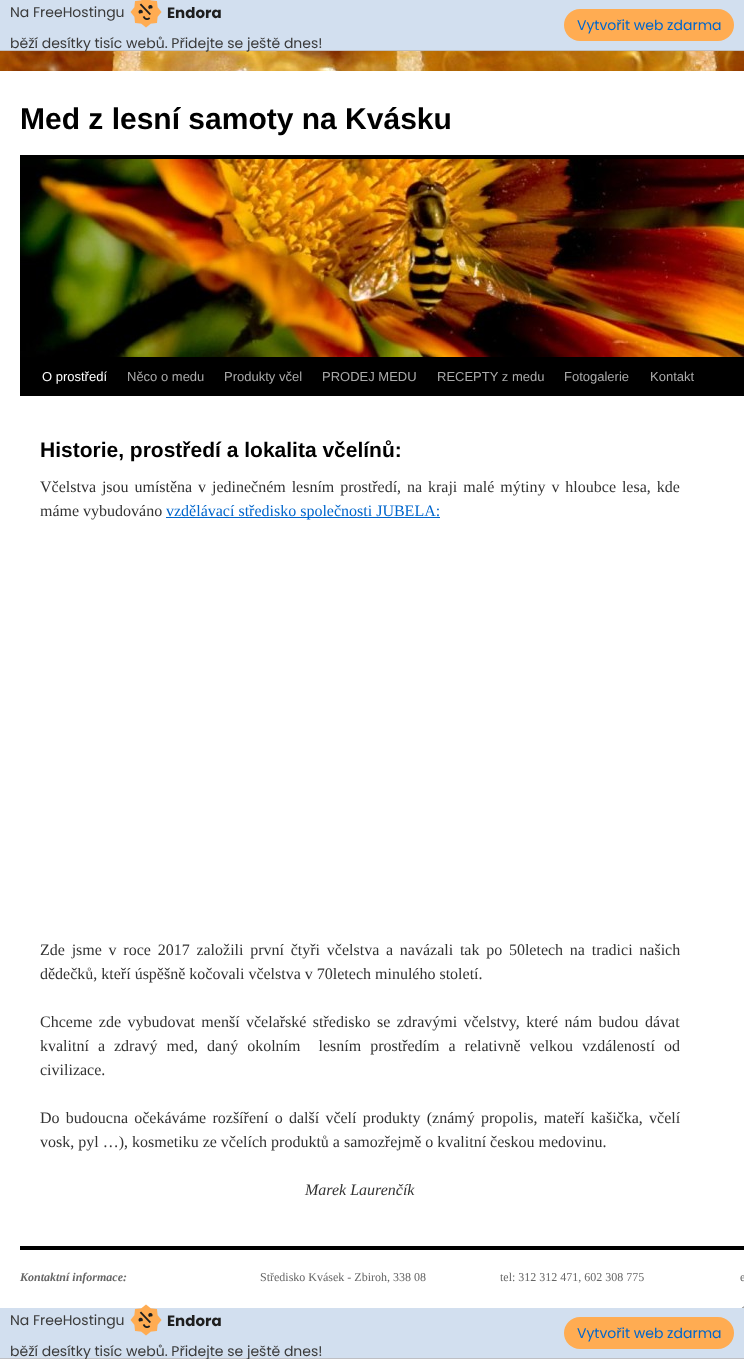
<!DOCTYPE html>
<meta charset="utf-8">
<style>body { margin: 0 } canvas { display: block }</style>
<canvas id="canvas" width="744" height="1359"></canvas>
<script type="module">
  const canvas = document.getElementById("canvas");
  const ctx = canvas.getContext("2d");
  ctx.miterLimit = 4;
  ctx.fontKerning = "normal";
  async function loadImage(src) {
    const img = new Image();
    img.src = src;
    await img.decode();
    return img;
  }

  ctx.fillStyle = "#ffffff";
  ctx.fillRect(0, 0, 744, 1359);
  ctx.drawImage(await loadImage("img1.png"), 0, 51, 744, 20);
  ctx.fillStyle = "#d2dfef";
  ctx.fillRect(0, 0, 744, 50);
  ctx.fillStyle = "#bebfc4";
  ctx.fillRect(0, 50, 744, 1);
  ctx.font = "14px Poppins";
  ctx.fillStyle = "#3a3a3a";
  ctx.fillText("Na FreeHostingu", 10, 17);
  ctx.drawImage(await loadImage("img2.png"), 130, 0, 32, 28);
  ctx.font = "bold 15px Poppins";
  ctx.fillStyle = "#1e1e1e";
  ctx.fillText("Endora", 167, 18);
  ctx.font = "14px Poppins";
  ctx.fillStyle = "#3a3a3a";
  ctx.fillText("běží desítky tisíc webů. Přidejte se ještě dnes!", 10, 48);
  ctx.fillStyle = "#ffac52";
  ctx.beginPath();
  ctx.roundRect(564, 9, 170, 32, 16);
  ctx.fill();
  ctx.fillStyle = "#0066cc";
  ctx.fillText("Vytvořit web zdarma", 577, 30);
  ctx.font = "bold 30px Liberation Sans";
  ctx.fillStyle = "#000000";
  ctx.fillText("Med z lesní samoty na Kvásku", 20, 129);
  ctx.fillRect(20, 155, 724, 4);
  ctx.fillRect(20, 357, 724, 39);
  ctx.drawImage(await loadImage("img3.png"), 20, 159, 724, 198);
  ctx.font = "13px Liberation Sans";
  ctx.fillStyle = "#ffffff";
  ctx.fillText("O prostředí", 42, 381);
  ctx.fillStyle = "#aaaaaa";
  ctx.fillText("Něco o medu", 127, 381);
  ctx.fillText("Produkty včel", 224, 381);
  ctx.fillText("PRODEJ MEDU", 322, 381);
  ctx.fillText("RECEPTY z medu", 437, 381);
  ctx.fillText("Fotogalerie", 564, 381);
  ctx.fillText("Kontakt", 650, 381);
  ctx.font = "bold 21px Liberation Sans";
  ctx.fillStyle = "#000000";
  ctx.fillText("Historie, prostředí a lokalita včelínů:", 40, 457);
  ctx.wordSpacing = "1.9px";
  ctx.font = "16px Liberation Serif";
  ctx.fillStyle = "#333333";
  ctx.fillText("Včelstva jsou umístěna v jedinečném lesním prostředí, na kraji malé mýtiny v hloubce lesa, kde", 40, 492);
  ctx.wordSpacing = "0px";
  ctx.fillText("máme vybudováno", 40, 516);
  ctx.fillStyle = "#0066cc";
  ctx.fillRect(166, 517, 274, 1);
  ctx.fillText("vzdělávací středisko společnosti JUBELA:", 166, 516);
  ctx.wordSpacing = "2.75px";
  ctx.fillStyle = "#333333";
  ctx.fillText("Zde jsme v roce 2017 založili první čtyři včelstva a navázali tak po 50letech na tradici našich", 40, 955);
  ctx.wordSpacing = "0px";
  ctx.fillText("dědečků, kteří úspěšně kočovali včelstva v 70letech minulého století.", 40, 979);
  ctx.wordSpacing = "2.4px";
  ctx.fillText("Chceme zde vybudovat menší včelařské středisko se zdravými včelstvy, které nám budou dávat", 40, 1027);
  ctx.wordSpacing = "5px";
  ctx.fillText("kvalitní a zdravý med, daný okolním  lesním prostředím a relativně velkou vzdáleností od", 40, 1051);
  ctx.wordSpacing = "0px";
  ctx.fillText("civilizace.", 40, 1075);
  ctx.wordSpacing = "2.25px";
  ctx.fillText("Do budoucna očekáváme rozšíření o další včelí produkty (známý propolis, mateří kašička, včelí", 40, 1123);
  ctx.wordSpacing = "0px";
  ctx.fillText("vosk, pyl …), kosmetiku ze včelích produktů a samozřejmě o kvalitní českou medovinu.", 40, 1147);
  ctx.font = "italic 16px Liberation Serif";
  ctx.fillText("Marek Laurenčík", 305, 1195);
  ctx.fillStyle = "#000000";
  ctx.fillRect(20, 1246, 724, 4);
  ctx.font = "italic bold 12px Liberation Serif";
  ctx.fillStyle = "#666666";
  ctx.fillText("Kontaktní informace:", 20, 1281);
  ctx.font = "12px Liberation Serif";
  ctx.fillText("Středisko Kvásek - Zbiroh, 338 08", 260, 1281);
  ctx.fillText("tel: 312 312 471, 602 308 775", 500, 1281);
  ctx.fillText("e", 740, 1281);
  ctx.drawImage(await loadImage("img4.png"), 741, 1306, 3, 2);
  ctx.fillStyle = "#d2dfef";
  ctx.fillRect(0, 1308, 744, 50);
  ctx.fillStyle = "#bebfc4";
  ctx.fillRect(0, 1358, 744, 1);
  ctx.font = "14px Poppins";
  ctx.fillStyle = "#3a3a3a";
  ctx.fillText("Na FreeHostingu", 10, 1325);
  ctx.drawImage(await loadImage("img5.png"), 130, 1304, 32, 32);
  ctx.font = "bold 15px Poppins";
  ctx.fillStyle = "#1e1e1e";
  ctx.fillText("Endora", 167, 1326);
  ctx.font = "14px Poppins";
  ctx.fillStyle = "#3a3a3a";
  ctx.fillText("běží desítky tisíc webů. Přidejte se ještě dnes!", 10, 1356);
  ctx.fillStyle = "#ffac52";
  ctx.beginPath();
  ctx.roundRect(564, 1317, 170, 32, 16);
  ctx.fill();
  ctx.fillStyle = "#0066cc";
  ctx.fillText("Vytvořit web zdarma", 577, 1338);
</script>
